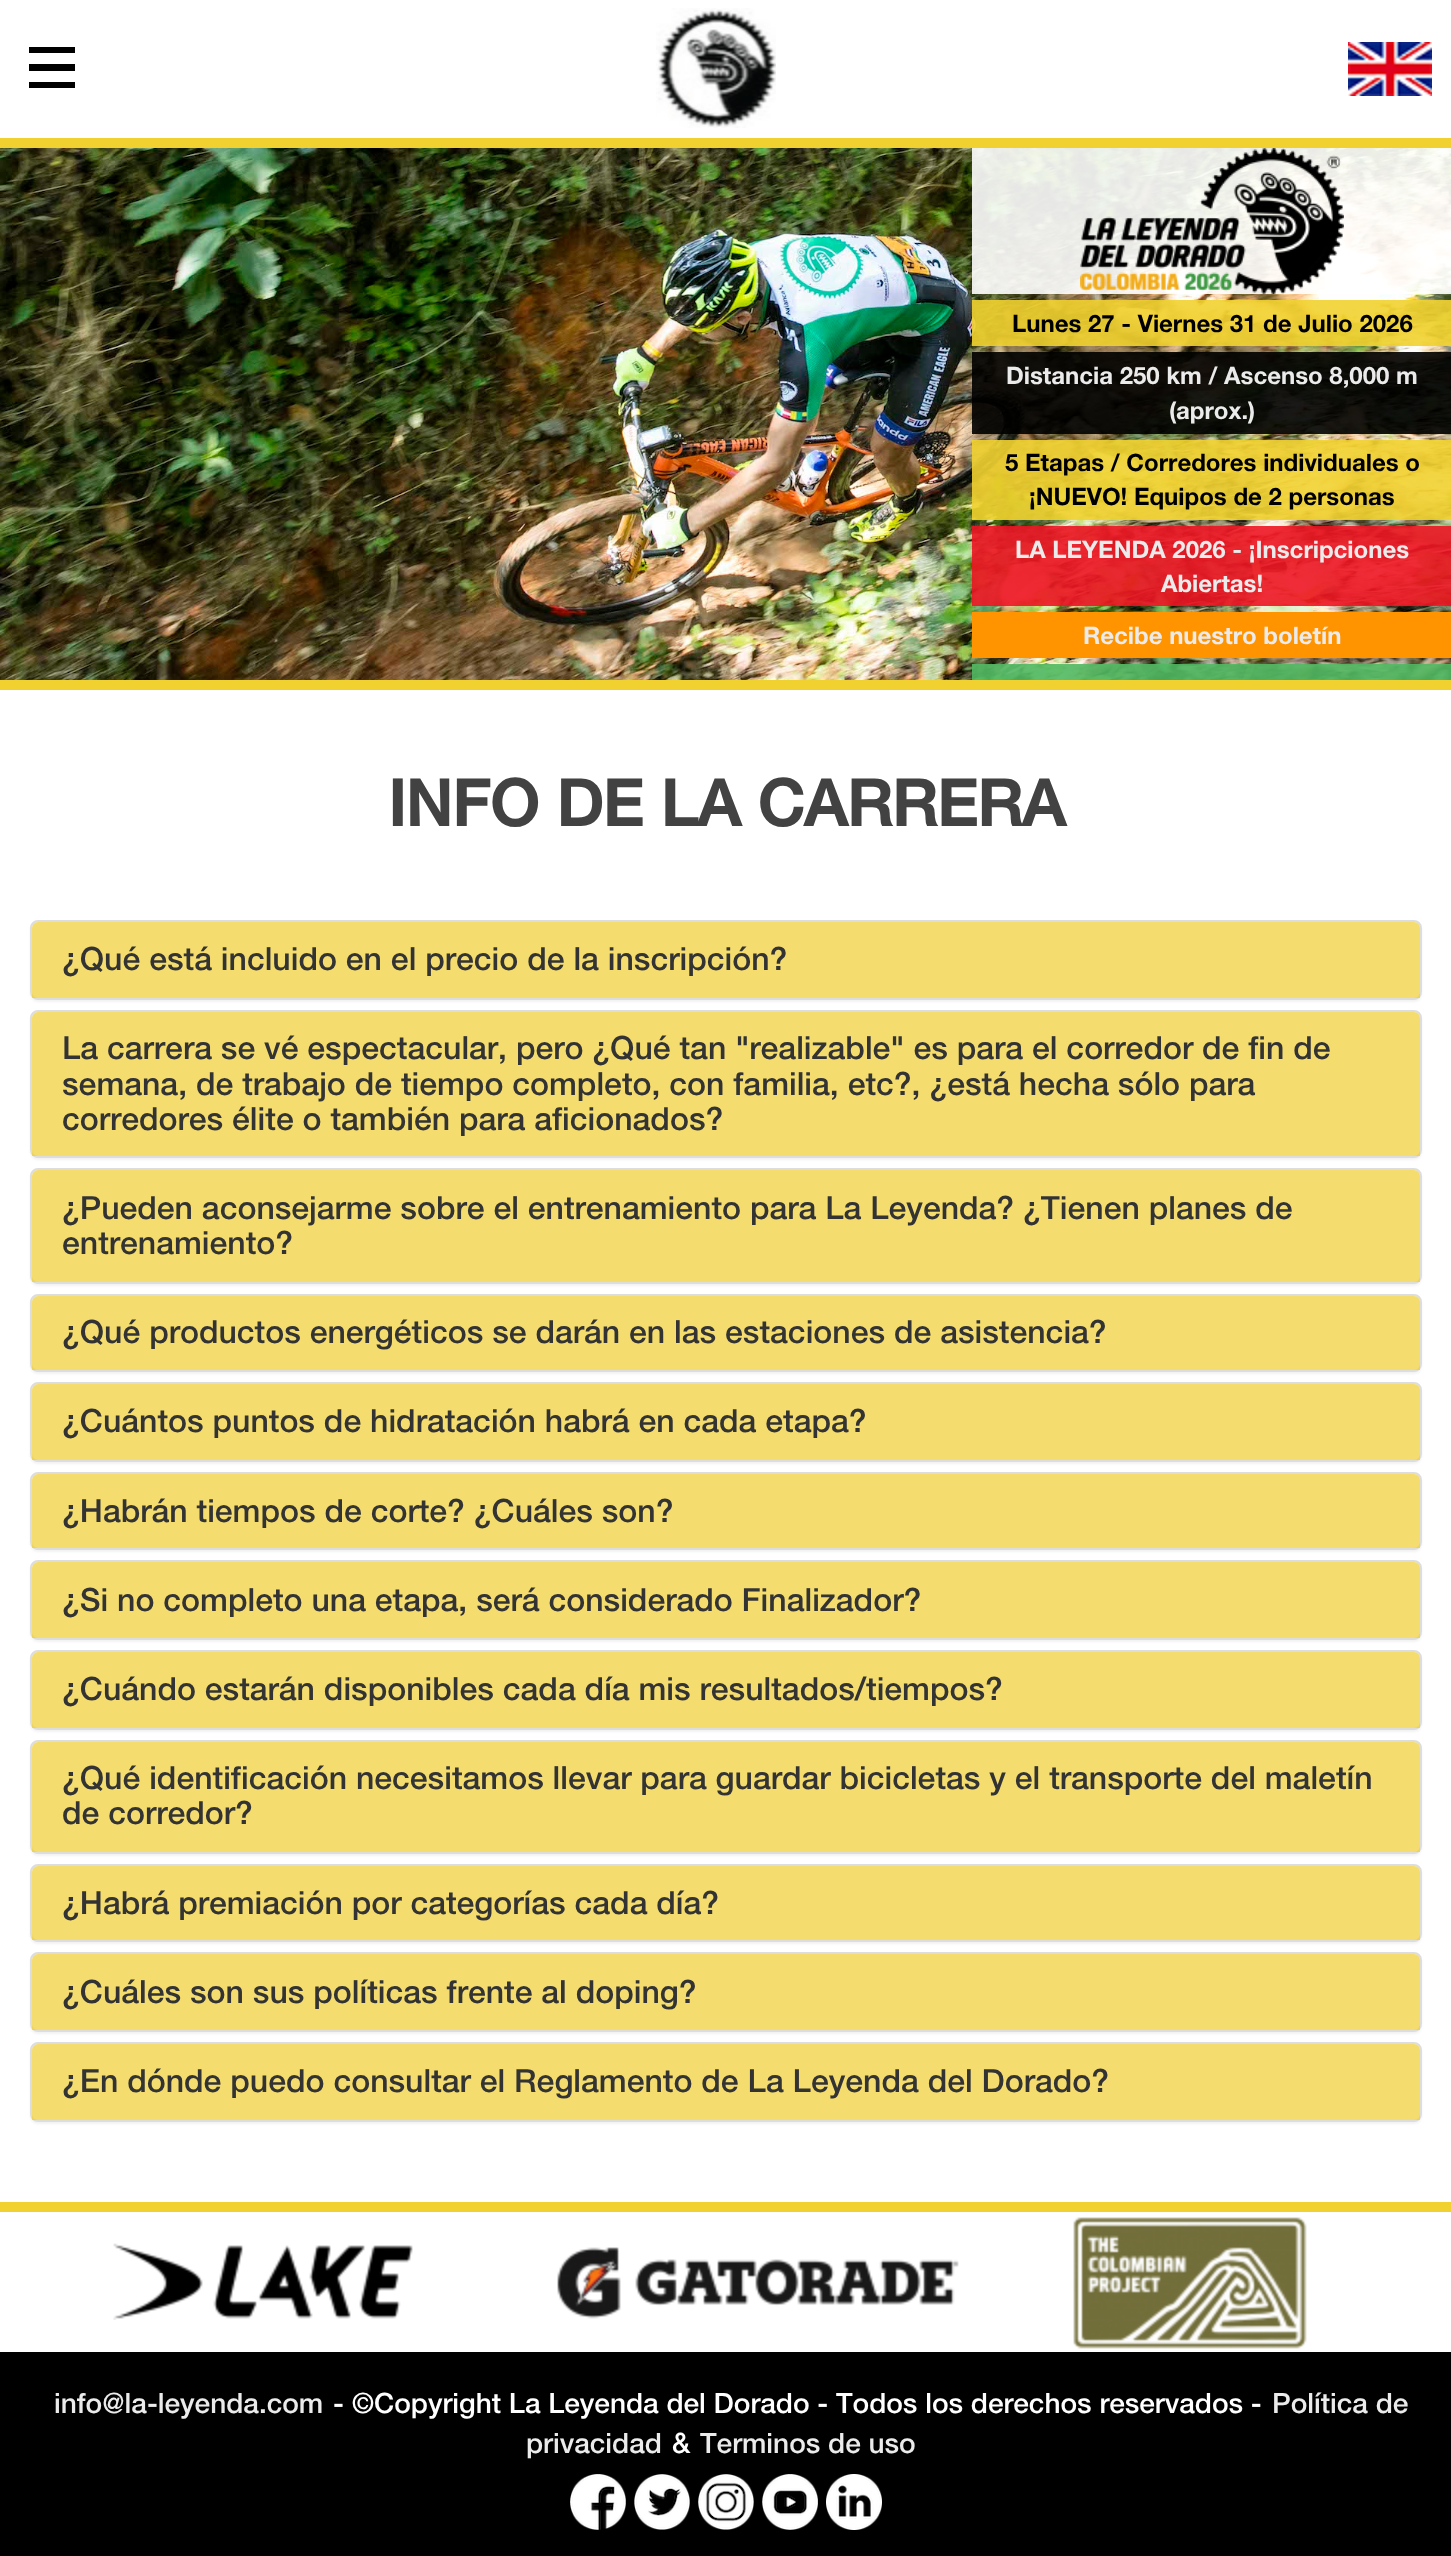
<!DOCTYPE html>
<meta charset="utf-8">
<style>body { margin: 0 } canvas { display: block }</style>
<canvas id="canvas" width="1451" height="2556"></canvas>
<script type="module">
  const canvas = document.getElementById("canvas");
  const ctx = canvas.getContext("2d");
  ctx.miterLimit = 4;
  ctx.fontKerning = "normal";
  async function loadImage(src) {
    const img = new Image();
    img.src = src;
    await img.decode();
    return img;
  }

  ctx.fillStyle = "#ffffff";
  ctx.fillRect(0, 0, 1451, 2556);
  ctx.fillStyle = "#000000";
  ctx.fillRect(29, 47, 46, 6);
  ctx.fillRect(29, 64, 46, 7);
  ctx.fillRect(29, 82, 46, 6);
  ctx.drawImage(await loadImage("img1.png"), 656, 8, 120, 120);
  ctx.drawImage(await loadImage("img2.png"), 1348, 42, 84, 54);
  ctx.fillStyle = "#f1d130";
  ctx.fillRect(0, 138, 1451, 10);
  ctx.fillRect(0, 680, 1451, 10);
  ctx.drawImage(await loadImage("img3.png"), 0, 148, 1451, 532);
  ctx.fillStyle = "rgba(255, 255, 255, 0.9)";
  ctx.fillRect(972, 148, 479, 146);
  ctx.drawImage(await loadImage("img4.png"), 1080, 148, 264, 146);
  ctx.fillStyle = "rgba(241, 209, 48, 0.9)";
  ctx.fillRect(972, 300, 479, 46);
  ctx.font = "bold 24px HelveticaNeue";
  ctx.fillStyle = "#000000";
  ctx.fillText("Lunes 27 - Viernes 31 de Julio 2026", 1012, 332);
  ctx.fillStyle = "rgba(0, 0, 0, 0.9)";
  ctx.fillRect(972, 352, 479, 82);
  ctx.fillStyle = "#ebebeb";
  ctx.fillText("Distancia 250 km / Ascenso 8,000 m", 1006, 384);
  ctx.fillText("(aprox.)", 1169, 419);
  ctx.fillStyle = "rgba(241, 209, 48, 0.9)";
  ctx.fillRect(972, 440, 479, 80);
  ctx.fillStyle = "#000000";
  ctx.fillText("5 Etapas / Corredores individuales o", 1005, 471);
  ctx.fillText("¡NUEVO! Equipos de 2 personas", 1029, 505);
  ctx.fillStyle = "rgba(237, 21, 36, 0.9)";
  ctx.fillRect(972, 526, 479, 80);
  ctx.fillStyle = "#ebebeb";
  ctx.fillText("LA LEYENDA 2026 - ¡Inscripciones", 1015, 558);
  ctx.fillText("Abiertas!", 1161, 592);
  ctx.fillStyle = "#ff9300";
  ctx.fillRect(972, 612, 479, 46);
  ctx.fillStyle = "#ebebeb";
  ctx.fillText("Recibe nuestro boletín", 1083, 644);
  ctx.fillStyle = "rgba(81, 185, 99, 0.9)";
  ctx.fillRect(972, 664, 479, 16);
  ctx.font = "bold 64px 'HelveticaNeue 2'";
  ctx.fillStyle = "#424242";
  ctx.fillText("INFO DE LA CARRERA", 388, 826);
  ctx.fillStyle = "rgba(0, 0, 0, 0.05)";
  ctx.filter = "blur(1px)";
  ctx.beginPath();
  ctx.roundRect(30, 922, 1392, 80, 8);
  ctx.fill();
  ctx.filter = "none";
  ctx.fillStyle = "#ffffff";
  ctx.beginPath();
  ctx.roundRect(31, 921, 1390, 78, 7);
  ctx.fill();
  ctx.strokeStyle = "#dddddd";
  ctx.lineWidth = 2;
  ctx.stroke();
  ctx.fillStyle = "rgba(239, 207, 48, 0.7)";
  ctx.beginPath();
  ctx.roundRect(32, 922, 1388, 76, [6, 6, 0, 0]);
  ctx.fill();
  ctx.font = "500 32px HelveticaNeue";
  ctx.fillStyle = "#333333";
  ctx.fillText("¿Qué está incluido en el precio de la inscripción?", 62, 970);
  ctx.fillStyle = "rgba(0, 0, 0, 0.05)";
  ctx.filter = "blur(1px)";
  ctx.beginPath();
  ctx.roundRect(30, 1012, 1392, 148, 8);
  ctx.fill();
  ctx.filter = "none";
  ctx.fillStyle = "#ffffff";
  ctx.beginPath();
  ctx.roundRect(31, 1011, 1390, 146, 7);
  ctx.fill();
  ctx.stroke();
  ctx.fillStyle = "rgba(239, 207, 48, 0.7)";
  ctx.beginPath();
  ctx.roundRect(32, 1012, 1388, 144, [6, 6, 0, 0]);
  ctx.fill();
  ctx.fillStyle = "#333333";
  ctx.fillText("La carrera se vé espectacular, pero ¿Qué tan \"realizable\" es para el corredor de fin de", 62, 1059);
  ctx.fillText("semana, de trabajo de tiempo completo, con familia, etc?, ¿está hecha sólo para", 62, 1095);
  ctx.fillText("corredores élite o también para aficionados?", 62, 1130);
  ctx.fillStyle = "rgba(0, 0, 0, 0.05)";
  ctx.filter = "blur(1px)";
  ctx.beginPath();
  ctx.roundRect(30, 1170, 1392, 116, 8);
  ctx.fill();
  ctx.filter = "none";
  ctx.fillStyle = "#ffffff";
  ctx.beginPath();
  ctx.roundRect(31, 1169, 1390, 114, 7);
  ctx.fill();
  ctx.stroke();
  ctx.fillStyle = "rgba(239, 207, 48, 0.7)";
  ctx.beginPath();
  ctx.roundRect(32, 1170, 1388, 112, [6, 6, 0, 0]);
  ctx.fill();
  ctx.fillStyle = "#333333";
  ctx.fillText("¿Pueden aconsejarme sobre el entrenamiento para La Leyenda? ¿Tienen planes de", 62, 1219);
  ctx.fillText("entrenamiento?", 62, 1254);
  ctx.fillStyle = "rgba(0, 0, 0, 0.05)";
  ctx.filter = "blur(1px)";
  ctx.beginPath();
  ctx.roundRect(30, 1296, 1392, 78, 8);
  ctx.fill();
  ctx.filter = "none";
  ctx.fillStyle = "#ffffff";
  ctx.beginPath();
  ctx.roundRect(31, 1295, 1390, 76, 7);
  ctx.fill();
  ctx.stroke();
  ctx.fillStyle = "rgba(239, 207, 48, 0.7)";
  ctx.beginPath();
  ctx.roundRect(32, 1296, 1388, 74, [6, 6, 0, 0]);
  ctx.fill();
  ctx.fillStyle = "#333333";
  ctx.fillText("¿Qué productos energéticos se darán en las estaciones de asistencia?", 62, 1343);
  ctx.fillStyle = "rgba(0, 0, 0, 0.05)";
  ctx.filter = "blur(1px)";
  ctx.beginPath();
  ctx.roundRect(30, 1384, 1392, 80, 8);
  ctx.fill();
  ctx.filter = "none";
  ctx.fillStyle = "#ffffff";
  ctx.beginPath();
  ctx.roundRect(31, 1383, 1390, 78, 7);
  ctx.fill();
  ctx.stroke();
  ctx.fillStyle = "rgba(239, 207, 48, 0.7)";
  ctx.beginPath();
  ctx.roundRect(32, 1384, 1388, 76, [6, 6, 0, 0]);
  ctx.fill();
  ctx.fillStyle = "#333333";
  ctx.fillText("¿Cuántos puntos de hidratación habrá en cada etapa?", 62, 1432);
  ctx.fillStyle = "rgba(0, 0, 0, 0.05)";
  ctx.filter = "blur(1px)";
  ctx.beginPath();
  ctx.roundRect(30, 1474, 1392, 78, 8);
  ctx.fill();
  ctx.filter = "none";
  ctx.fillStyle = "#ffffff";
  ctx.beginPath();
  ctx.roundRect(31, 1473, 1390, 76, 7);
  ctx.fill();
  ctx.stroke();
  ctx.fillStyle = "rgba(239, 207, 48, 0.7)";
  ctx.beginPath();
  ctx.roundRect(32, 1474, 1388, 74, [6, 6, 0, 0]);
  ctx.fill();
  ctx.fillStyle = "#333333";
  ctx.fillText("¿Habrán tiempos de corte? ¿Cuáles son?", 62, 1522);
  ctx.fillStyle = "rgba(0, 0, 0, 0.05)";
  ctx.filter = "blur(1px)";
  ctx.beginPath();
  ctx.roundRect(30, 1562, 1392, 80, 8);
  ctx.fill();
  ctx.filter = "none";
  ctx.fillStyle = "#ffffff";
  ctx.beginPath();
  ctx.roundRect(31, 1561, 1390, 78, 7);
  ctx.fill();
  ctx.stroke();
  ctx.fillStyle = "rgba(239, 207, 48, 0.7)";
  ctx.beginPath();
  ctx.roundRect(32, 1562, 1388, 76, [6, 6, 0, 0]);
  ctx.fill();
  ctx.fillStyle = "#333333";
  ctx.fillText("¿Si no completo una etapa, será considerado Finalizador?", 62, 1611);
  ctx.fillStyle = "rgba(0, 0, 0, 0.05)";
  ctx.filter = "blur(1px)";
  ctx.beginPath();
  ctx.roundRect(30, 1652, 1392, 80, 8);
  ctx.fill();
  ctx.filter = "none";
  ctx.fillStyle = "#ffffff";
  ctx.beginPath();
  ctx.roundRect(31, 1651, 1390, 78, 7);
  ctx.fill();
  ctx.stroke();
  ctx.fillStyle = "rgba(239, 207, 48, 0.7)";
  ctx.beginPath();
  ctx.roundRect(32, 1652, 1388, 76, [6, 6, 0, 0]);
  ctx.fill();
  ctx.fillStyle = "#333333";
  ctx.fillText("¿Cuándo estarán disponibles cada día mis resultados/tiempos?", 62, 1700);
  ctx.fillStyle = "rgba(0, 0, 0, 0.05)";
  ctx.filter = "blur(1px)";
  ctx.beginPath();
  ctx.roundRect(30, 1742, 1392, 114, 8);
  ctx.fill();
  ctx.filter = "none";
  ctx.fillStyle = "#ffffff";
  ctx.beginPath();
  ctx.roundRect(31, 1741, 1390, 112, 7);
  ctx.fill();
  ctx.stroke();
  ctx.fillStyle = "rgba(239, 207, 48, 0.7)";
  ctx.beginPath();
  ctx.roundRect(32, 1742, 1388, 110, [6, 6, 0, 0]);
  ctx.fill();
  ctx.fillStyle = "#333333";
  ctx.fillText("¿Qué identificación necesitamos llevar para guardar bicicletas y el transporte del maletín", 62, 1789);
  ctx.fillText("de corredor?", 62, 1824);
  ctx.fillStyle = "rgba(0, 0, 0, 0.05)";
  ctx.filter = "blur(1px)";
  ctx.beginPath();
  ctx.roundRect(30, 1866, 1392, 78, 8);
  ctx.fill();
  ctx.filter = "none";
  ctx.fillStyle = "#ffffff";
  ctx.beginPath();
  ctx.roundRect(31, 1865, 1390, 76, 7);
  ctx.fill();
  ctx.stroke();
  ctx.fillStyle = "rgba(239, 207, 48, 0.7)";
  ctx.beginPath();
  ctx.roundRect(32, 1866, 1388, 74, [6, 6, 0, 0]);
  ctx.fill();
  ctx.fillStyle = "#333333";
  ctx.fillText("¿Habrá premiación por categorías cada día?", 62, 1914);
  ctx.fillStyle = "rgba(0, 0, 0, 0.05)";
  ctx.filter = "blur(1px)";
  ctx.beginPath();
  ctx.roundRect(30, 1954, 1392, 80, 8);
  ctx.fill();
  ctx.filter = "none";
  ctx.fillStyle = "#ffffff";
  ctx.beginPath();
  ctx.roundRect(31, 1953, 1390, 78, 7);
  ctx.fill();
  ctx.stroke();
  ctx.fillStyle = "rgba(239, 207, 48, 0.7)";
  ctx.beginPath();
  ctx.roundRect(32, 1954, 1388, 76, [6, 6, 0, 0]);
  ctx.fill();
  ctx.fillStyle = "#333333";
  ctx.fillText("¿Cuáles son sus políticas frente al doping?", 62, 2003);
  ctx.fillStyle = "rgba(0, 0, 0, 0.05)";
  ctx.filter = "blur(1px)";
  ctx.beginPath();
  ctx.roundRect(30, 2044, 1392, 80, 8);
  ctx.fill();
  ctx.filter = "none";
  ctx.fillStyle = "#ffffff";
  ctx.beginPath();
  ctx.roundRect(31, 2043, 1390, 78, 7);
  ctx.fill();
  ctx.stroke();
  ctx.fillStyle = "rgba(239, 207, 48, 0.7)";
  ctx.beginPath();
  ctx.roundRect(32, 2044, 1388, 76, [6, 6, 0, 0]);
  ctx.fill();
  ctx.fillStyle = "#333333";
  ctx.fillText("¿En dónde puedo consultar el Reglamento de La Leyenda del Dorado?", 62, 2092);
  ctx.fillStyle = "#f1d130";
  ctx.fillRect(0, 2202, 1451, 10);
  ctx.drawImage(await loadImage("img5.png"), 113, 2243, 300, 77);
  ctx.drawImage(await loadImage("img6.png"), 557, 2247, 402, 72);
  ctx.drawImage(await loadImage("img7.png"), 1073, 2217, 234, 132);
  ctx.fillStyle = "#000000";
  ctx.fillRect(0, 2352, 1451, 204);
  ctx.font = "500 28px HelveticaNeue";
  ctx.fillStyle = "#ebebeb";
  ctx.fillText("info@la-leyenda.com", 54, 2413);
  ctx.fillStyle = "#ffffff";
  ctx.fillText("- ©Copyright La Leyenda del Dorado - Todos los derechos reservados -", 333, 2413);
  ctx.fillStyle = "#ebebeb";
  ctx.fillText("Política de", 1272, 2413);
  ctx.fillText("privacidad", 526, 2453);
  ctx.fillStyle = "#ffffff";
  ctx.fillText("&", 672, 2453);
  ctx.fillStyle = "#ebebeb";
  ctx.fillText("Terminos de uso", 700, 2453);
  ctx.drawImage(await loadImage("img8.png"), 570, 2474, 56, 56);
  ctx.drawImage(await loadImage("img9.png"), 634, 2474, 56, 56);
  ctx.drawImage(await loadImage("img10.png"), 698, 2474, 56, 56);
  ctx.drawImage(await loadImage("img11.png"), 762, 2474, 56, 56);
  ctx.drawImage(await loadImage("img12.png"), 826, 2474, 56, 56);
</script>
